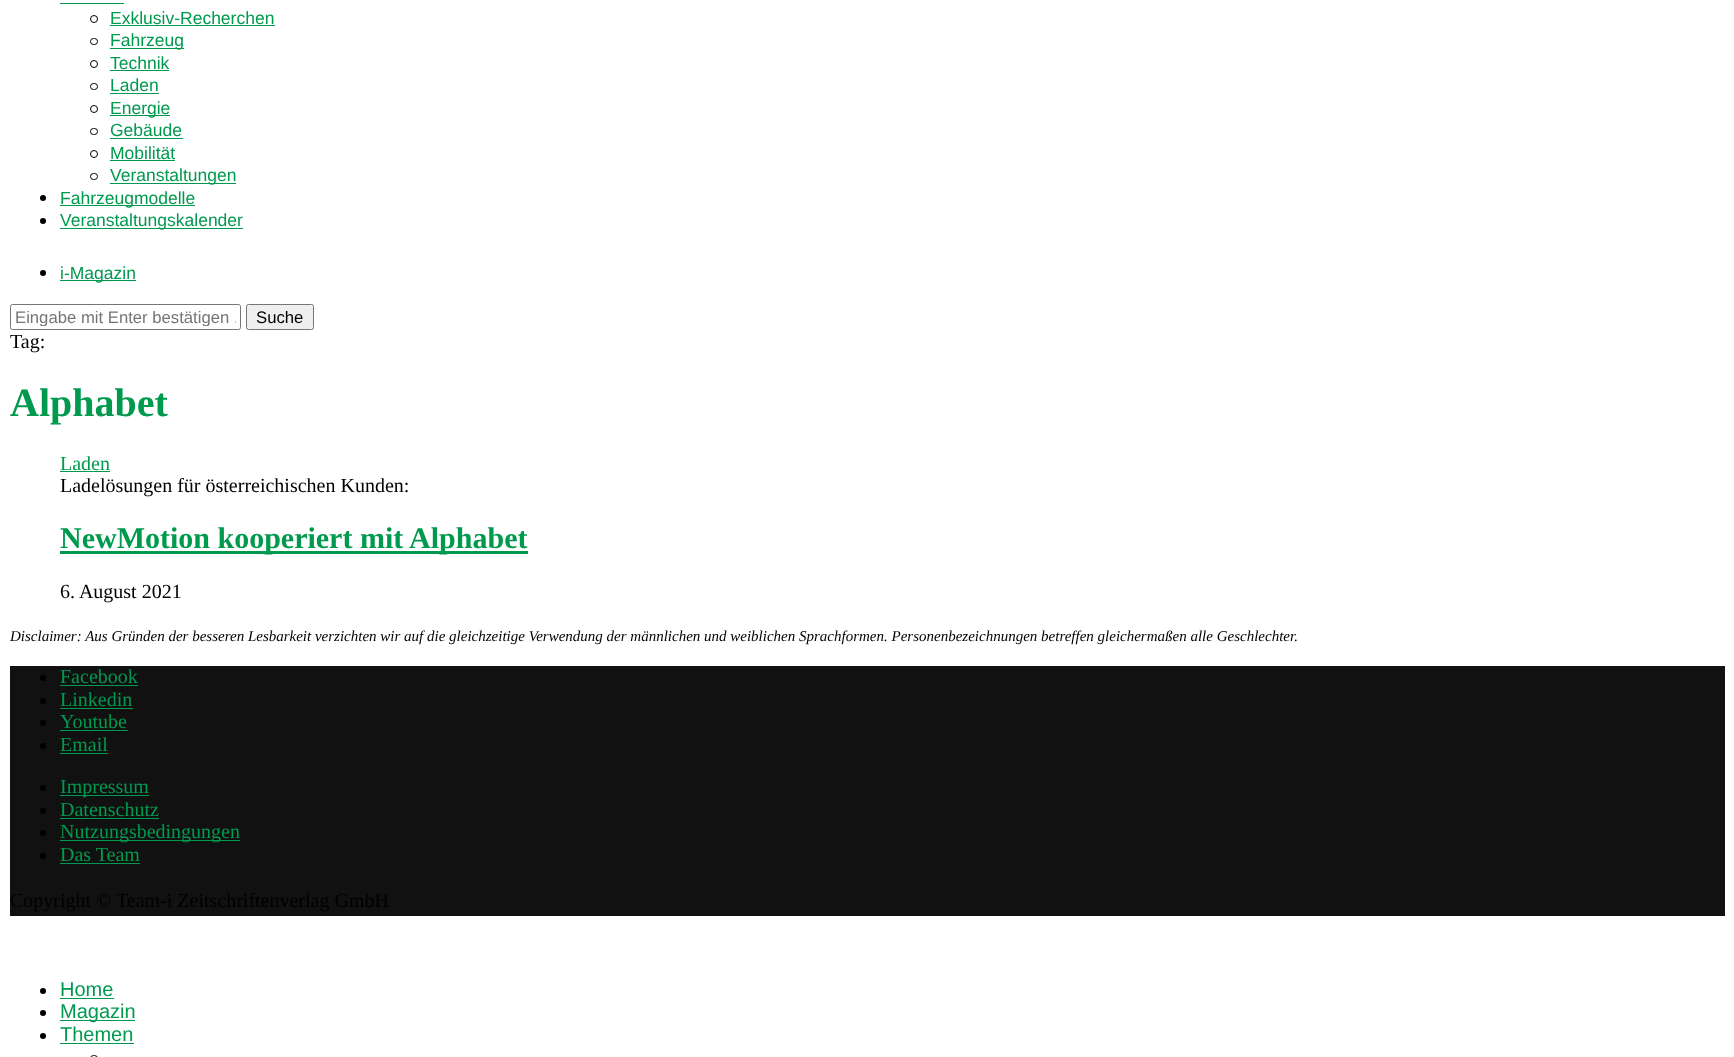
<!DOCTYPE html>
<meta charset="utf-8">
<style>body { margin: 0 } canvas { display: block }</style>
<canvas id="canvas" width="1734" height="1057"></canvas>
<script type="module">
  const canvas = document.getElementById("canvas");
  const ctx = canvas.getContext("2d");
  ctx.miterLimit = 4;
  ctx.fontKerning = "normal";

  ctx.fillStyle = "#ffffff";
  ctx.fillRect(0, 0, 1734, 1057);
  ctx.fillStyle = "#009a4e";
  ctx.fillRect(60, 3, 64, 1);
  ctx.beginPath();
  ctx.arc(94, 19, 3.5, 0, Math.PI * 2);
  ctx.strokeStyle = "#000000";
  ctx.stroke();
  ctx.font = "17.5px Liberation Sans";
  ctx.fillText("Exklusiv-Recherchen", 110, 24);
  ctx.fillRect(110, 25, 165, 1);
  ctx.beginPath();
  ctx.roundRect(90.5, 38.5, 7, 6, 3);
  ctx.stroke();
  ctx.fillRect(110, 48, 74, 1);
  ctx.fillText("Fahrzeug", 110, 46);
  ctx.beginPath();
  ctx.arc(94, 64, 3.5, 0, Math.PI * 2);
  ctx.stroke();
  ctx.fillText("Technik", 110, 69);
  ctx.fillRect(110, 70, 59, 1);
  ctx.beginPath();
  ctx.roundRect(90.5, 83.5, 7, 6, 3);
  ctx.stroke();
  ctx.fillText("Laden", 110, 91);
  ctx.fillRect(110, 93, 49, 1);
  ctx.beginPath();
  ctx.arc(94, 109, 3.5, 0, Math.PI * 2);
  ctx.stroke();
  ctx.fillRect(110, 115, 60, 1);
  ctx.fillText("Energie", 110, 114);
  ctx.beginPath();
  ctx.roundRect(90.5, 128.5, 7, 6, 3);
  ctx.stroke();
  ctx.fillText("Gebäude", 110, 136);
  ctx.fillRect(110, 138, 73, 1);
  ctx.beginPath();
  ctx.arc(94, 154, 3.5, 0, Math.PI * 2);
  ctx.stroke();
  ctx.fillText("Mobilität", 110, 159);
  ctx.fillRect(110, 160, 65, 1);
  ctx.beginPath();
  ctx.roundRect(90.5, 173.5, 7, 6, 3);
  ctx.stroke();
  ctx.fillRect(110, 183, 126, 1);
  ctx.fillText("Veranstaltungen", 110, 181);
  ctx.fillStyle = "#000000";
  ctx.beginPath();
  ctx.arc(43, 198, 3, 0, Math.PI * 2);
  ctx.fill();
  ctx.fillStyle = "#009a4e";
  ctx.fillRect(60, 205, 135, 1);
  ctx.fillText("Fahrzeugmodelle", 60, 204);
  ctx.fillStyle = "#000000";
  ctx.beginPath();
  ctx.arc(43, 221, 3, 0, Math.PI * 2);
  ctx.fill();
  ctx.fillStyle = "#009a4e";
  ctx.fillRect(60, 228, 183, 1);
  ctx.fillText("Veranstaltungskalender", 60, 226);
  ctx.fillStyle = "#000000";
  ctx.beginPath();
  ctx.arc(43, 273, 3, 0, Math.PI * 2);
  ctx.fill();
  ctx.fillStyle = "#009a4e";
  ctx.fillRect(60, 280, 76, 1);
  ctx.fillText("i-Magazin", 60, 279);
  ctx.beginPath();
  ctx.roundRect(10.5, 304.5, 230, 25, 2);
  ctx.strokeStyle = "#767676";
  ctx.stroke();
  ctx.save();
  ctx.beginPath();
  ctx.rect(15, 308, 221, 18);
  ctx.clip();
  ctx.font = "16.7px Liberation Sans";
  ctx.fillStyle = "#757575";
  ctx.fillText("Eingabe mit Enter bestätigen .", 15, 323);
  ctx.restore();
  ctx.fillStyle = "#efefef";
  ctx.beginPath();
  ctx.roundRect(246.5, 304.5, 67, 25, 2);
  ctx.fill();
  ctx.stroke();
  ctx.font = "16.7px Liberation Sans";
  ctx.fillStyle = "#000000";
  ctx.fillText("Suche", 256, 323);
  ctx.font = "20px Liberation Serif";
  ctx.fillText("Tag:", 10, 348);
  ctx.font = "bold 40px Liberation Serif";
  ctx.fillStyle = "#009a4e";
  ctx.fillText("Alphabet", 10, 416);
  ctx.font = "20px Liberation Serif";
  ctx.fillText("Laden", 60, 470);
  ctx.fillRect(60, 471, 50, 1);
  ctx.fillStyle = "#000000";
  ctx.fillText("Ladelösungen für österreichischen Kunden:", 60, 492);
  ctx.fillStyle = "#009a4e";
  ctx.fillRect(60, 551, 468, 3);
  ctx.font = "bold 30px Liberation Serif";
  ctx.fillText("NewMotion kooperiert mit Alphabet", 60, 548);
  ctx.font = "20px Liberation Serif";
  ctx.fillStyle = "#000000";
  ctx.fillText("6. August 2021", 60, 598);
  ctx.font = "italic 15px Liberation Serif";
  ctx.fillText("Disclaimer: Aus Gründen der besseren Lesbarkeit verzichten wir auf die gleichzeitige Verwendung der männlichen und weiblichen Sprachformen. Personenbezeichnungen betreffen gleichermaßen alle Geschlechter.", 10, 641);
  ctx.fillStyle = "#111111";
  ctx.fillRect(10, 666, 1715, 250);
  ctx.fillStyle = "#000000";
  ctx.beginPath();
  ctx.arc(43, 678, 3, 0, Math.PI * 2);
  ctx.fill();
  ctx.font = "20px Liberation Serif";
  ctx.fillStyle = "#009a4e";
  ctx.fillText("Facebook", 60, 683);
  ctx.fillRect(60, 685, 78, 1);
  ctx.fillStyle = "#000000";
  ctx.beginPath();
  ctx.arc(43, 701, 3, 0, Math.PI * 2);
  ctx.fill();
  ctx.fillStyle = "#009a4e";
  ctx.fillText("Linkedin", 60, 706);
  ctx.fillRect(60, 708, 73, 1);
  ctx.fillStyle = "#000000";
  ctx.beginPath();
  ctx.arc(43, 723, 3, 0, Math.PI * 2);
  ctx.fill();
  ctx.fillStyle = "#009a4e";
  ctx.fillText("Youtube", 60, 728);
  ctx.fillRect(60, 730, 68, 1);
  ctx.fillStyle = "#000000";
  ctx.beginPath();
  ctx.arc(43, 746, 3, 0, Math.PI * 2);
  ctx.fill();
  ctx.fillStyle = "#009a4e";
  ctx.fillText("Email", 60, 751);
  ctx.fillRect(60, 753, 48, 1);
  ctx.fillStyle = "#000000";
  ctx.beginPath();
  ctx.arc(43, 788, 3, 0, Math.PI * 2);
  ctx.fill();
  ctx.fillStyle = "#009a4e";
  ctx.fillRect(60, 795, 89, 1);
  ctx.fillText("Impressum", 60, 793);
  ctx.fillStyle = "#000000";
  ctx.beginPath();
  ctx.arc(43, 811, 3, 0, Math.PI * 2);
  ctx.fill();
  ctx.fillStyle = "#009a4e";
  ctx.fillText("Datenschutz", 60, 816);
  ctx.fillRect(60, 818, 99, 1);
  ctx.fillStyle = "#000000";
  ctx.beginPath();
  ctx.arc(43, 833, 3, 0, Math.PI * 2);
  ctx.fill();
  ctx.fillStyle = "#009a4e";
  ctx.fillRect(60, 840, 180, 1);
  ctx.fillText("Nutzungsbedingungen", 60, 838);
  ctx.fillStyle = "#000000";
  ctx.beginPath();
  ctx.arc(43, 856, 3, 0, Math.PI * 2);
  ctx.fill();
  ctx.fillStyle = "#009a4e";
  ctx.fillText("Das Team", 60, 861);
  ctx.fillRect(60, 863, 80, 1);
  ctx.fillStyle = "#000000";
  ctx.fillText("Copyright © Team-i Zeitschriftenverlag GmbH", 10, 907);
  ctx.beginPath();
  ctx.arc(43, 991, 3, 0, Math.PI * 2);
  ctx.fill();
  ctx.font = "20px Liberation Sans";
  ctx.fillStyle = "#009a4e";
  ctx.fillText("Home", 60, 996);
  ctx.fillRect(60, 998, 54, 1);
  ctx.fillStyle = "#000000";
  ctx.beginPath();
  ctx.arc(43, 1013, 3, 0, Math.PI * 2);
  ctx.fill();
  ctx.fillStyle = "#009a4e";
  ctx.fillRect(60, 1020, 75, 1);
  ctx.fillText("Magazin", 60, 1018);
  ctx.fillStyle = "#000000";
  ctx.beginPath();
  ctx.arc(43, 1036, 3, 0, Math.PI * 2);
  ctx.fill();
  ctx.fillStyle = "#009a4e";
  ctx.fillText("Themen", 60, 1041);
  ctx.fillRect(60, 1043, 74, 1);
  ctx.beginPath();
  ctx.roundRect(90.5, 1055.5, 7, 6, 3.5);
  ctx.strokeStyle = "#000000";
  ctx.stroke();
</script>
